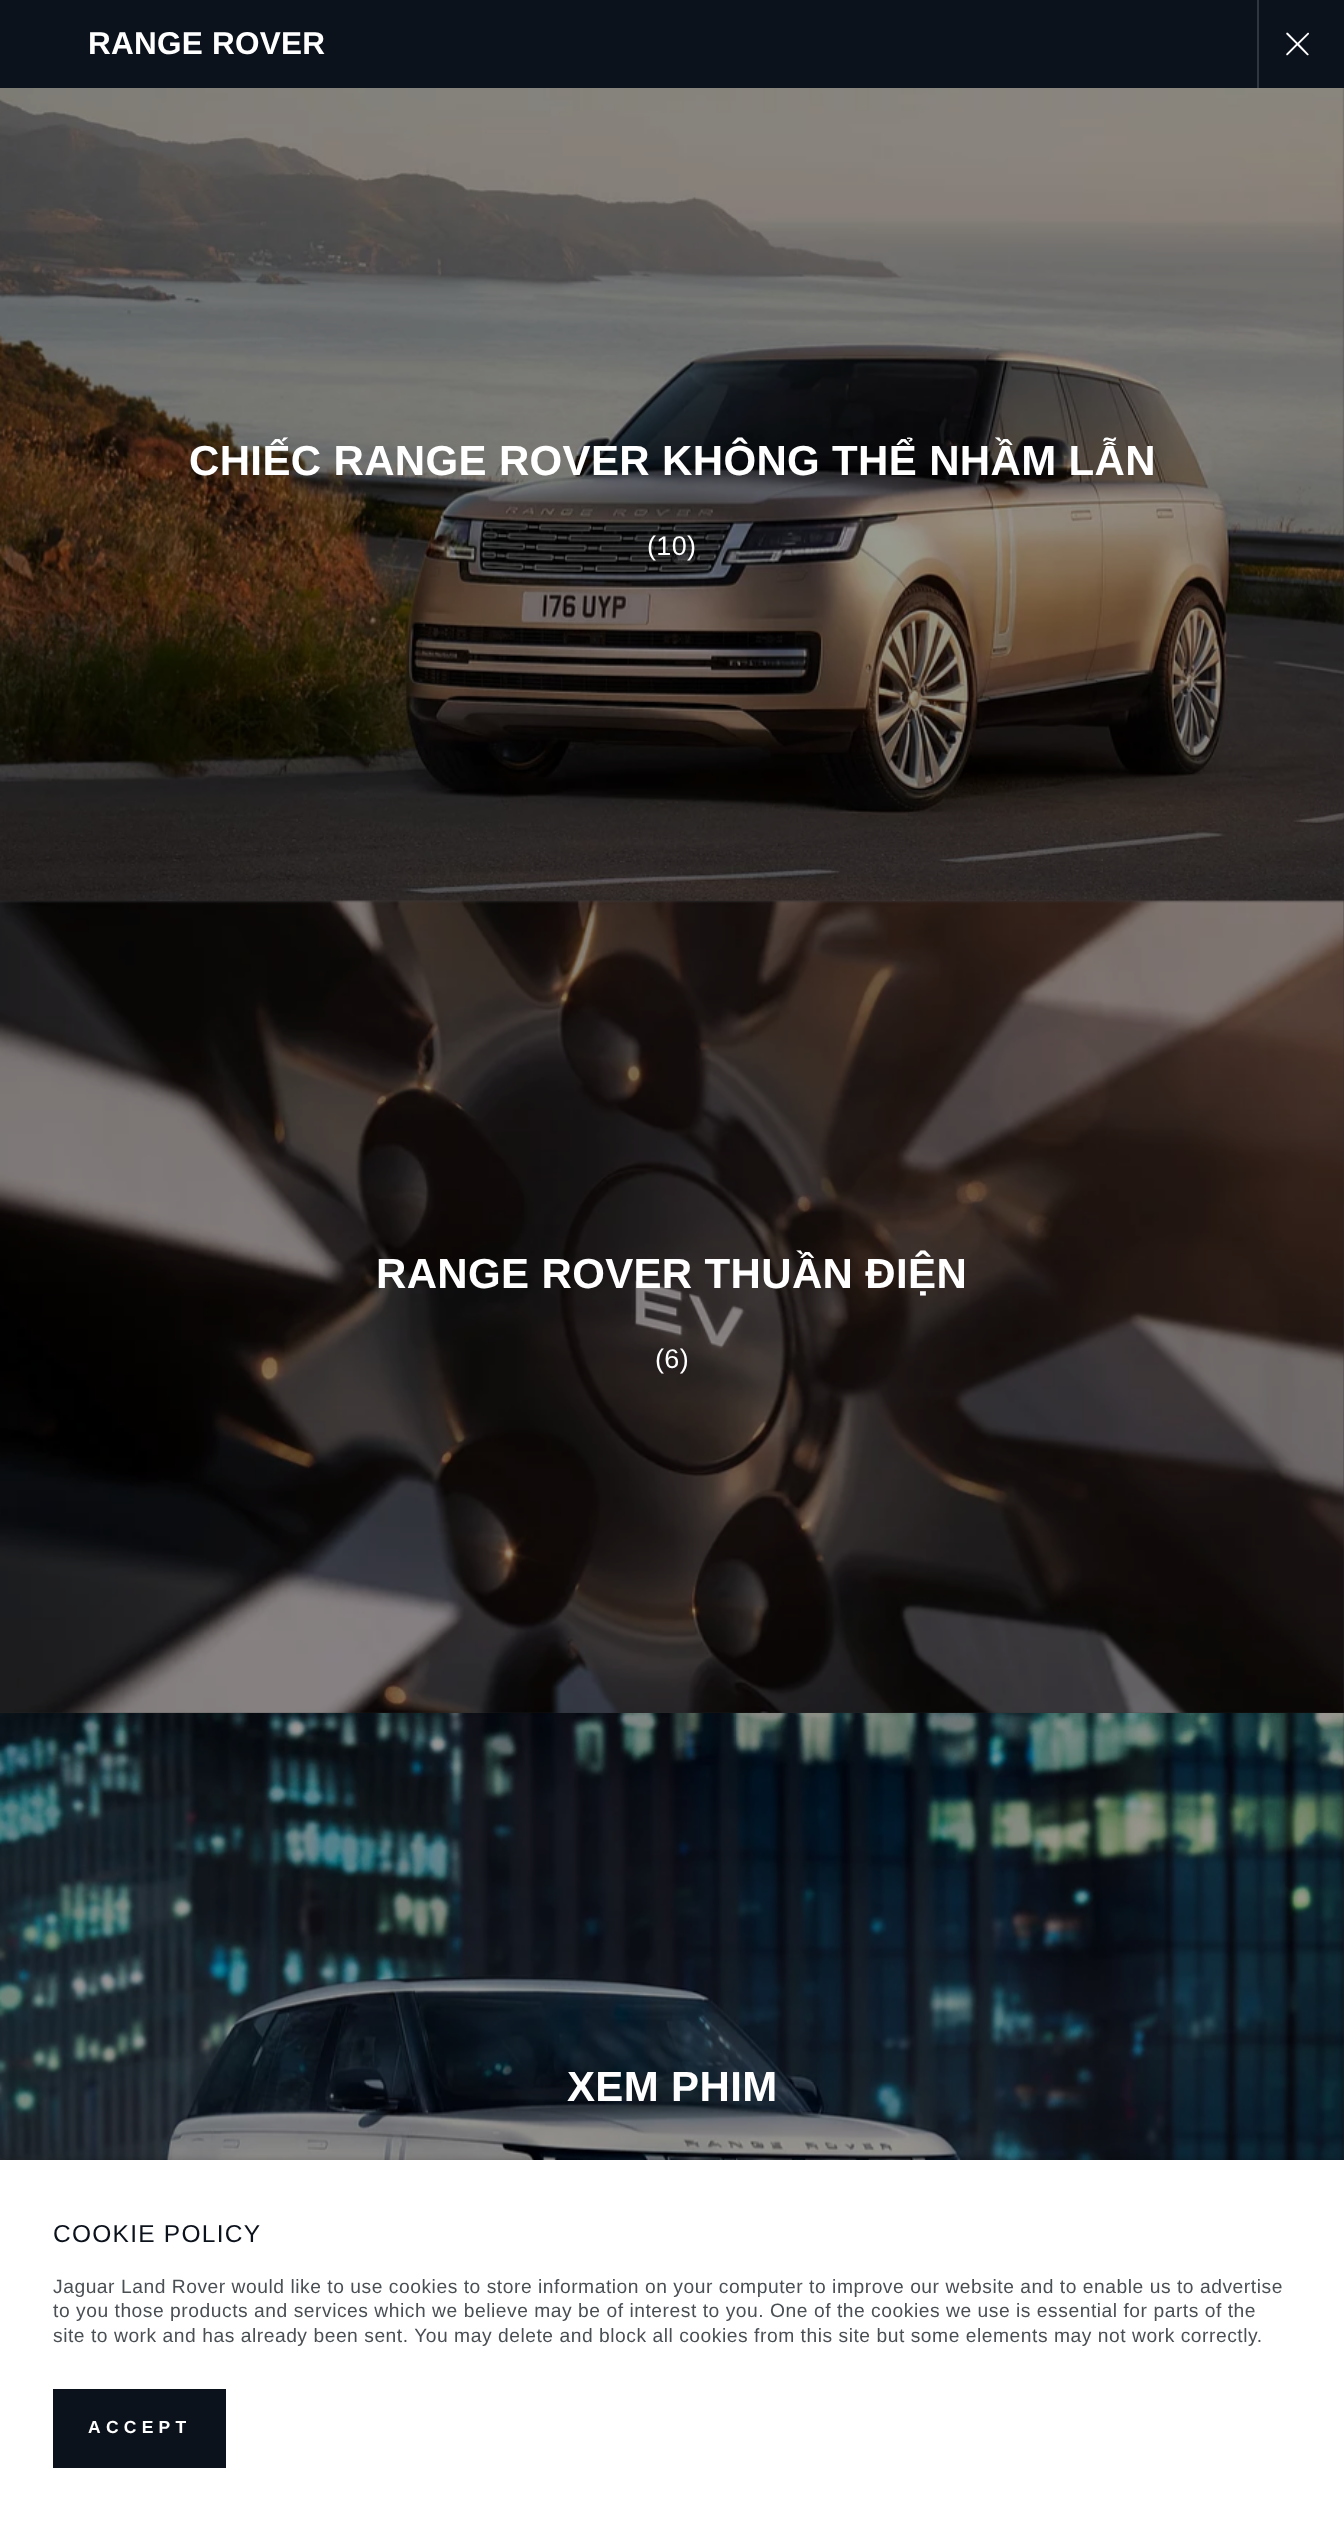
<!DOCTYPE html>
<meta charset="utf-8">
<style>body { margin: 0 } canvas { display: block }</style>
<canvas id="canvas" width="1344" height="2528"></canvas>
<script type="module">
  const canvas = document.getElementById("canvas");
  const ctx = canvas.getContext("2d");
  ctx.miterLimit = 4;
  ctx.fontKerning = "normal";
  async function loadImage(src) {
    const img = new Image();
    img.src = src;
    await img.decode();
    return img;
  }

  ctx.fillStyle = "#4a4f54";
  ctx.fillRect(0, 0, 1344, 2528);
  ctx.fillStyle = "#0c121c";
  ctx.fillRect(0, 0, 1344, 88);
  ctx.letterSpacing = "0.25px";
  ctx.font = "bold 31.5px Liberation Sans";
  ctx.fillStyle = "#ffffff";
  ctx.fillText("RANGE ROVER", 88, 54);
  ctx.fillStyle = "#30363e";
  ctx.fillRect(1257, 0, 2, 88);
  ctx.drawImage(await loadImage("img1.png"), 1286, 32, 23, 24);
  ctx.drawImage(await loadImage("img2.png"), 0, 88, 1344, 813);
  ctx.fillStyle = "rgba(0, 0, 0, 0.4)";
  ctx.fillRect(0, 88, 1344, 813);
  ctx.letterSpacing = "0.35px";
  ctx.font = "bold 42px Liberation Sans";
  ctx.fillStyle = "#ffffff";
  ctx.fillText("CHIẾC RANGE ROVER KHÔNG THỂ NHẦM LẪN", 189, 475);
  ctx.font = "27px Liberation Sans";
  ctx.fillText("(10)", 647, 555);
  ctx.drawImage(await loadImage("img3.png"), 0, 900, 1344, 815);
  ctx.fillStyle = "rgba(0, 0, 0, 0.4)";
  ctx.fillRect(0, 901, 1344, 812);
  ctx.font = "bold 42px Liberation Sans";
  ctx.fillStyle = "#ffffff";
  ctx.fillText("RANGE ROVER THUẦN ĐIỆN", 376, 1288);
  ctx.font = "27px Liberation Sans";
  ctx.fillText("(6)", 655, 1368);
  ctx.drawImage(await loadImage("img4.png"), 0, 1713, 1344, 447);
  ctx.fillStyle = "rgba(0, 0, 0, 0.4)";
  ctx.fillRect(0, 1713, 1344, 447);
  ctx.font = "bold 42px Liberation Sans";
  ctx.fillStyle = "#ffffff";
  ctx.fillText("XEM PHIM", 567, 2101);
  ctx.fillStyle = "rgba(1, 1, 1, 0.25)";
  ctx.filter = "blur(5px)";
  ctx.beginPath();
  ctx.rect(0, 2160, 1344, 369);
  ctx.fill();
  ctx.filter = "none";
  ctx.fillStyle = "#ffffff";
  ctx.fillRect(0, 2160, 1344, 368);
  ctx.letterSpacing = "1.25px";
  ctx.font = "24.5px Liberation Sans";
  ctx.fillStyle = "#0c121c";
  ctx.fillText("COOKIE POLICY", 53, 2242);
  ctx.letterSpacing = "0.53px";
  ctx.font = "19.25px Liberation Sans";
  ctx.fillStyle = "#4a4f54";
  ctx.fillText("Jaguar Land Rover would like to use cookies to store information on your computer to improve our website and to enable us to advertise", 53, 2293);
  ctx.fillText("to you those products and services which we believe may be of interest to you. One of the cookies we use is essential for parts of the", 53, 2317);
  ctx.fillText("site to work and has already been sent. You may delete and block all cookies from this site but some elements may not work correctly.", 53, 2342);
  ctx.fillStyle = "#0c121c";
  ctx.fillRect(53, 2389, 173, 79);
  ctx.letterSpacing = "5.25px";
  ctx.font = "bold 17.5px Liberation Sans";
  ctx.fillStyle = "#ffffff";
  ctx.fillText("ACCEPT", 88, 2433);
</script>
